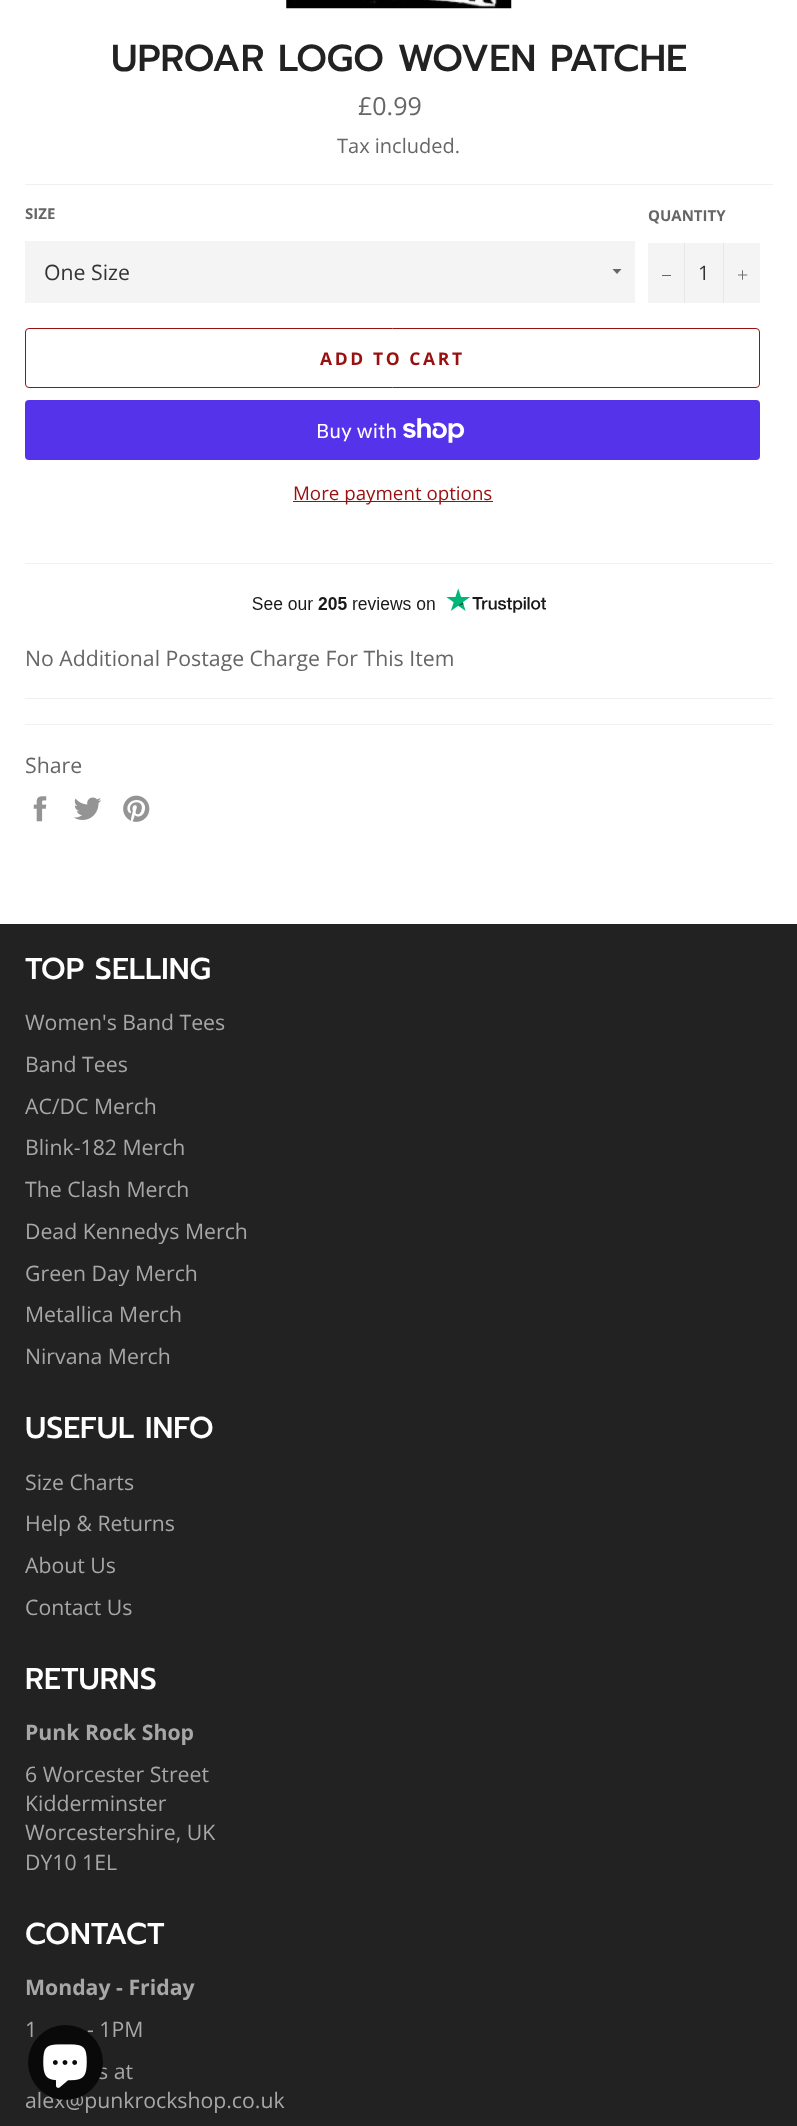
<!DOCTYPE html>
<meta charset="utf-8">
<style>body { margin: 0 } canvas { display: block }</style>
<canvas id="canvas" width="797" height="2126"></canvas>
<script type="module">
  const canvas = document.getElementById("canvas");
  const ctx = canvas.getContext("2d");
  ctx.miterLimit = 4;
  ctx.fontKerning = "normal";
  async function loadImage(src) {
    const img = new Image();
    img.src = src;
    await img.decode();
    return img;
  }

  ctx.fillStyle = "#ffffff";
  ctx.fillRect(0, 0, 797, 2126);
  ctx.drawImage(await loadImage("img1.png"), 286, 0, 226, 9);
  ctx.font = "500 37.5px Prompt";
  ctx.fillStyle = "#222222";
  ctx.fillText("UPROAR LOGO WOVEN PATCHE", 111, 71);
  ctx.font = "25px Open Sans";
  ctx.fillStyle = "#666666";
  ctx.fillText("£0.99", 358, 115);
  ctx.font = "20px Open Sans";
  ctx.fillText("Tax included.", 337, 153);
  ctx.fillStyle = "#f0f0f0";
  ctx.fillRect(25, 184, 748, 1);
  ctx.font = "bold 15px Open Sans";
  ctx.fillStyle = "#666666";
  ctx.fillText("SIZE", 25, 219);
  ctx.fillStyle = "#f4f4f4";
  ctx.fillRect(25, 241, 610, 62);
  ctx.fillStyle = "#666666";
  ctx.beginPath();
  ctx.moveTo(612.5, 269);
  ctx.lineTo(617, 274);
  ctx.lineTo(621.5, 269);
  ctx.closePath();
  ctx.fill();
  ctx.font = "21.25px Open Sans";
  ctx.fillStyle = "#333333";
  ctx.fillText("One Size", 44, 280);
  ctx.font = "bold 15px Open Sans";
  ctx.fillStyle = "#666666";
  ctx.fillText("QUANTITY", 648, 221);
  ctx.fillStyle = "#f4f4f4";
  ctx.fillRect(648, 243, 112, 60);
  ctx.fillStyle = "#e7e7e7";
  ctx.fillRect(684, 243, 1, 60);
  ctx.fillStyle = "#666666";
  ctx.fillRect(662, 275, 9, 1);
  ctx.font = "20px Open Sans";
  ctx.fillStyle = "#333333";
  ctx.fillText("1", 698, 280);
  ctx.fillStyle = "#e7e7e7";
  ctx.fillRect(723, 243, 1, 60);
  ctx.drawImage(await loadImage("img2.png"), 738, 270, 10, 10);
  ctx.beginPath();
  ctx.roundRect(25.5, 328.5, 734, 59, 3.5);
  ctx.strokeStyle = "#991010";
  ctx.stroke();
  ctx.letterSpacing = "2.6px";
  ctx.font = "bold 17.5px Open Sans";
  ctx.fillStyle = "#991010";
  ctx.fillText("ADD TO CART", 320, 365);
  ctx.fillStyle = "#5433eb";
  ctx.beginPath();
  ctx.roundRect(25, 400, 735, 60, 4);
  ctx.fill();
  ctx.letterSpacing = "0px";
  ctx.font = "20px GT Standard";
  ctx.fillStyle = "#ffffff";
  ctx.fillText("Buy with", 316, 438);
  ctx.drawImage(await loadImage("img3.png"), 403, 418, 62, 25);
  ctx.fillStyle = "#991010";
  ctx.fillRect(293, 501, 200, 1);
  ctx.font = "18.75px Open Sans";
  ctx.fillText("More payment options", 293, 500);
  ctx.fillStyle = "#f0f0f0";
  ctx.fillRect(25, 563, 748, 1);
  ctx.drawImage(await loadImage("img4.png"), 252, 588, 295, 25);
  ctx.font = "21.25px Open Sans";
  ctx.fillStyle = "#666666";
  ctx.fillText("No Additional Postage Charge For This Item", 25, 666);
  ctx.fillStyle = "#f0f0f0";
  ctx.fillRect(25, 698, 748, 1);
  ctx.fillRect(25, 724, 748, 1);
  ctx.fillStyle = "#666666";
  ctx.fillText("Share", 25, 773);
  ctx.drawImage(await loadImage("img5.png"), 33, 796, 14, 26);
  ctx.drawImage(await loadImage("img6.png"), 74, 797, 28, 23);
  ctx.drawImage(await loadImage("img7.png"), 123, 795, 27, 27);
  ctx.fillStyle = "#222222";
  ctx.fillRect(0, 924, 797, 1202);
  ctx.font = "500 30px Prompt";
  ctx.fillStyle = "#ffffff";
  ctx.fillText("TOP SELLING", 25, 979);
  ctx.font = "21.25px Open Sans";
  ctx.fillStyle = "#a7a7a7";
  ctx.fillText("Women's Band Tees", 25, 1030);
  ctx.fillText("Band Tees", 25, 1072);
  ctx.fillText("AC/DC Merch", 25, 1114);
  ctx.fillText("Blink-182 Merch", 25, 1155);
  ctx.fillText("The Clash Merch", 25, 1197);
  ctx.fillText("Dead Kennedys Merch", 25, 1239);
  ctx.fillText("Green Day Merch", 25, 1281);
  ctx.fillText("Metallica Merch", 25, 1322);
  ctx.fillText("Nirvana Merch", 25, 1364);
  ctx.font = "500 30px Prompt";
  ctx.fillStyle = "#ffffff";
  ctx.fillText("USEFUL INFO", 25, 1438);
  ctx.font = "21.25px Open Sans";
  ctx.fillStyle = "#a7a7a7";
  ctx.fillText("Size Charts", 25, 1490);
  ctx.fillText("Help & Returns", 25, 1531);
  ctx.fillText("About Us", 25, 1573);
  ctx.fillText("Contact Us", 25, 1615);
  ctx.font = "500 30px Prompt";
  ctx.fillStyle = "#ffffff";
  ctx.fillText("RETURNS", 25, 1689);
  ctx.font = "bold 21.25px Open Sans";
  ctx.fillStyle = "#a7a7a7";
  ctx.fillText("Punk Rock Shop", 25, 1740);
  ctx.font = "21.25px Open Sans";
  ctx.fillText("6 Worcester Street", 25, 1782);
  ctx.fillText("Kidderminster", 25, 1811);
  ctx.fillText("Worcestershire, UK", 25, 1840);
  ctx.fillText("DY10 1EL", 25, 1870);
  ctx.font = "500 30px Prompt";
  ctx.fillStyle = "#ffffff";
  ctx.fillText("CONTACT", 25, 1944);
  ctx.font = "bold 21.25px Open Sans";
  ctx.fillStyle = "#a7a7a7";
  ctx.fillText("Monday - Friday", 25, 1995);
  ctx.font = "21.25px Open Sans";
  ctx.fillText("1", 25, 2037);
  ctx.fillText("- 1PM", 87, 2037);
  ctx.fillText("s at", 98, 2079);
  ctx.fillText("alex@punkrockshop.co.uk", 25, 2108);
  ctx.fillStyle = "#0a0909";
  ctx.beginPath();
  ctx.arc(65.5, 2062.5, 37.5, 0, Math.PI * 2);
  ctx.fill();
  ctx.drawImage(await loadImage("img8.png"), 43, 2044, 44, 44);
</script>
